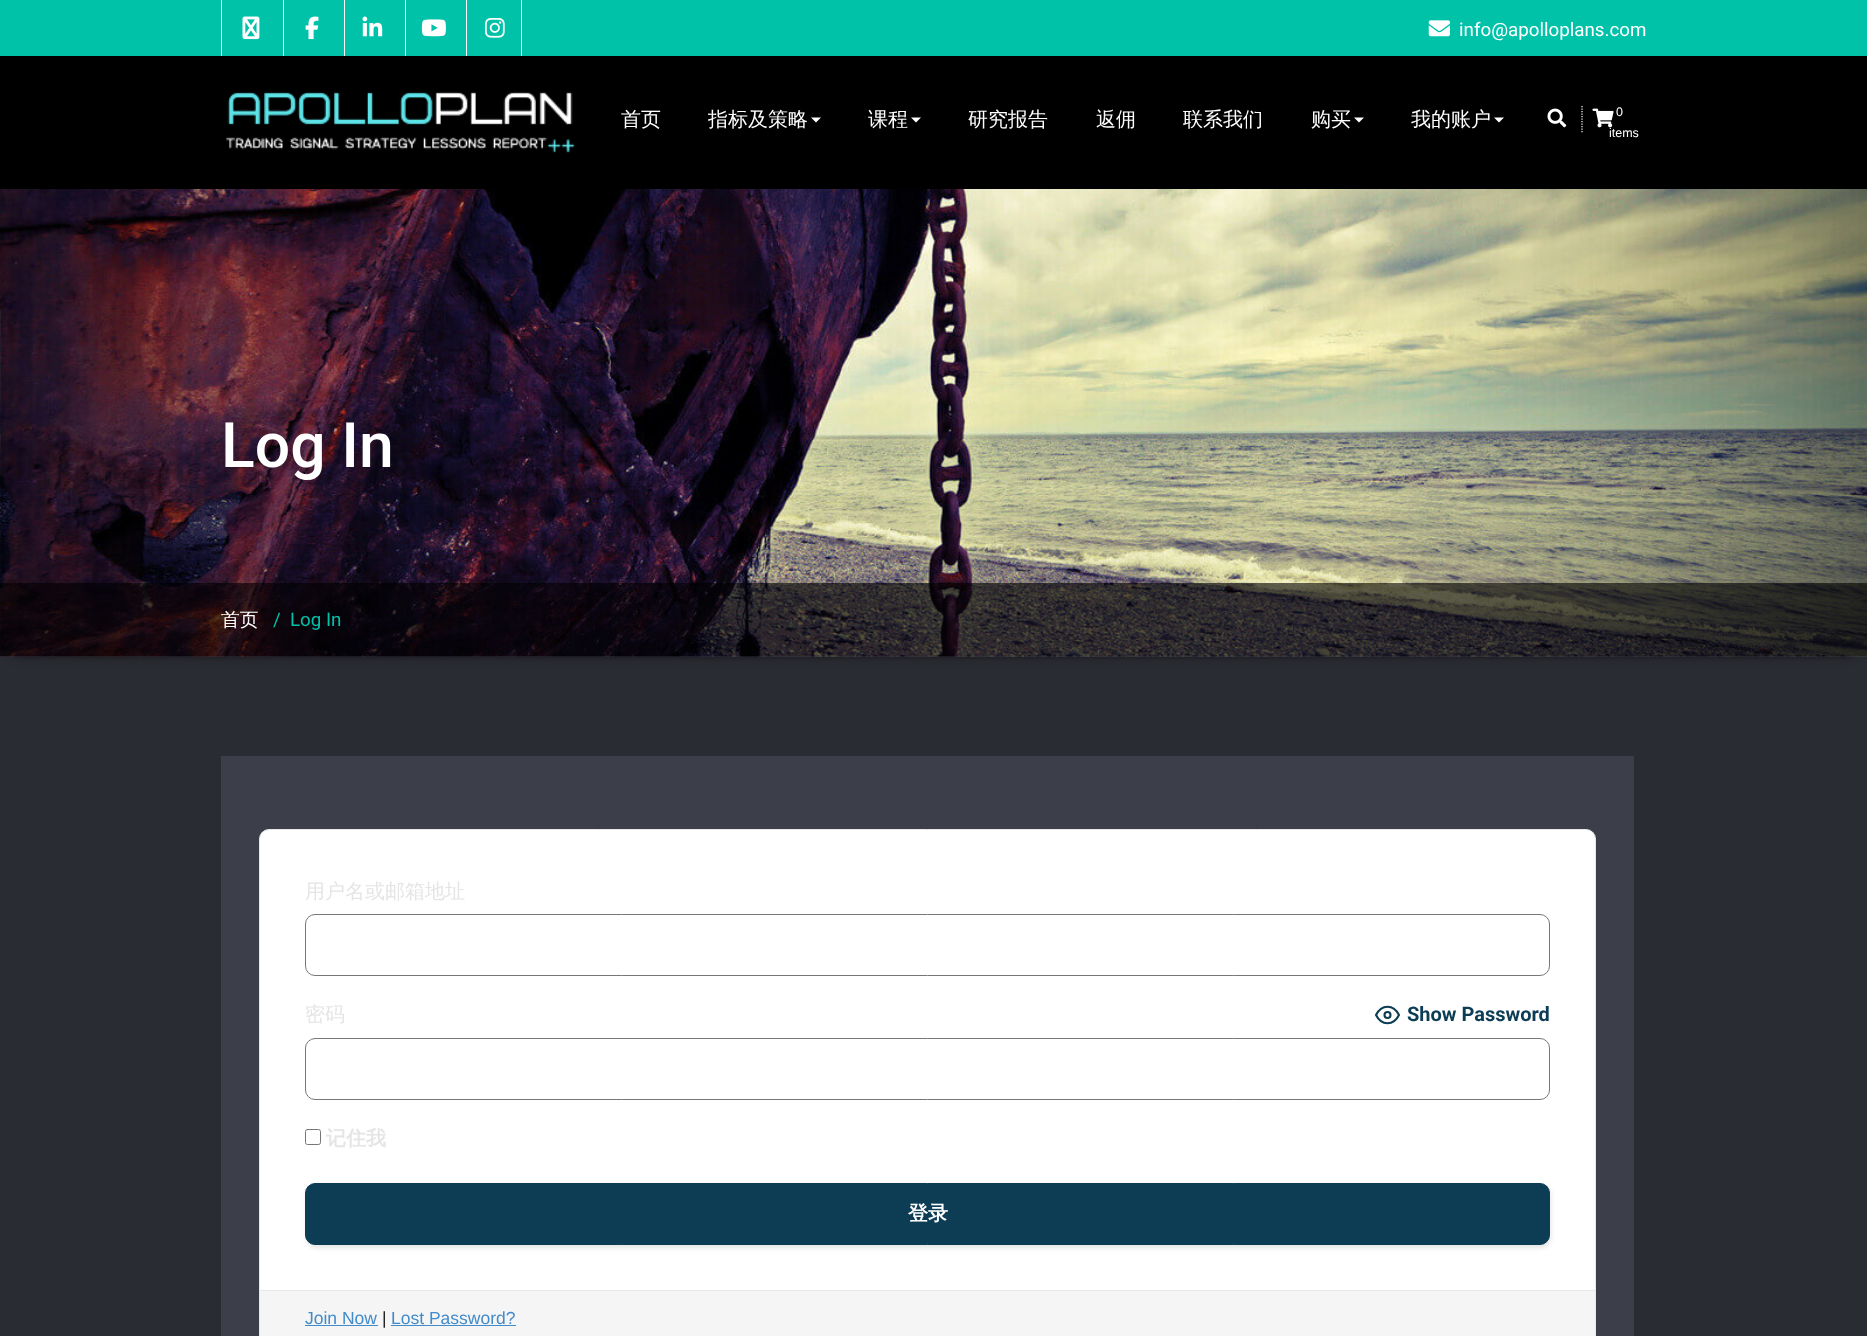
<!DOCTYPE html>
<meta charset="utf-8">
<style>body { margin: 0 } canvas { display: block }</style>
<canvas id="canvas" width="1867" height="1336"></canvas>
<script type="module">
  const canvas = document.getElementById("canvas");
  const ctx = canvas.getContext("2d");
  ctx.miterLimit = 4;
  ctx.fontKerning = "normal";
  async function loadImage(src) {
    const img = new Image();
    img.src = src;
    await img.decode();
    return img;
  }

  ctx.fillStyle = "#2a2c33";
  ctx.fillRect(0, 0, 1867, 1336);
  ctx.fillStyle = "#00c2a9";
  ctx.fillRect(0, 0, 1867, 56);
  ctx.fillStyle = "#ffffff";
  ctx.fillRect(221, 0, 1, 56);
  ctx.drawImage(await loadImage("img1.png"), 242, 16, 18, 24);
  ctx.fillRect(283, 0, 1, 56);
  ctx.drawImage(await loadImage("img2.png"), 305, 16, 14, 24);
  ctx.fillRect(344, 0, 1, 56);
  ctx.drawImage(await loadImage("img3.png"), 362, 16, 21, 21);
  ctx.fillRect(405, 0, 1, 56);
  ctx.drawImage(await loadImage("img4.png"), 421, 19, 25, 18);
  ctx.fillRect(521, 0, 1, 56);
  ctx.fillRect(466, 0, 1, 56);
  ctx.drawImage(await loadImage("img5.png"), 485, 18, 20, 20);
  ctx.drawImage(await loadImage("img6.png"), 1428, 20, 22, 17);
  ctx.font = "18.75px Roboto";
  ctx.fillText("info@apolloplans.com", 1459, 36);
  ctx.fillStyle = "#000000";
  ctx.fillRect(0, 56, 1867, 133);
  ctx.drawImage(await loadImage("img7.png"), 226, 91, 349, 62);
  ctx.font = "500 20px WenQuanYi Zen Hei";
  ctx.fillStyle = "#ffffff";
  ctx.fillText("首页", 621, 126);
  ctx.fillText("指标及策略", 708, 126);
  ctx.beginPath();
  ctx.moveTo(811, 117.5);
  ctx.lineTo(821, 117.5);
  ctx.lineTo(816, 122.5);
  ctx.closePath();
  ctx.fill();
  ctx.fillText("课程", 868, 126);
  ctx.beginPath();
  ctx.moveTo(911, 117.5);
  ctx.lineTo(921, 117.5);
  ctx.lineTo(916, 122.5);
  ctx.closePath();
  ctx.fill();
  ctx.fillText("研究报告", 968, 126);
  ctx.fillText("返佣", 1096, 126);
  ctx.fillText("联系我们", 1183, 126);
  ctx.fillText("购买", 1311, 126);
  ctx.beginPath();
  ctx.moveTo(1354, 117.5);
  ctx.lineTo(1364, 117.5);
  ctx.lineTo(1359, 122.5);
  ctx.closePath();
  ctx.fill();
  ctx.fillText("我的账户", 1411, 126);
  ctx.beginPath();
  ctx.moveTo(1494, 117.5);
  ctx.lineTo(1504, 117.5);
  ctx.lineTo(1499, 122.5);
  ctx.closePath();
  ctx.fill();
  ctx.drawImage(await loadImage("img8.png"), 1547, 108, 20, 20);
  ctx.beginPath();
  ctx.moveTo(1582, 106);
  ctx.lineTo(1582, 132.5);
  ctx.strokeStyle = "#ffffff";
  ctx.lineWidth = 1.2;
  ctx.setLineDash([1.25, 1.25]);
  ctx.stroke();
  ctx.drawImage(await loadImage("img9.png"), 1592, 108, 22, 20);
  ctx.font = "12.5px Liberation Sans";
  ctx.fillText("0", 1616, 116);
  ctx.fillText("items", 1609, 137);
  ctx.fillStyle = "#000000";
  ctx.filter = "blur(6px)";
  ctx.beginPath();
  ctx.rect(13, 210, 1842, 443);
  ctx.fill();
  ctx.filter = "none";
  ctx.drawImage(await loadImage("img10.png"), 0, 189, 1867, 468);
  ctx.font = "500 62.5px Roboto";
  ctx.fillStyle = "#ffffff";
  ctx.fillText("Log In", 221, 467);
  ctx.fillStyle = "rgba(0, 0, 0, 0.6)";
  ctx.fillRect(0, 583, 1867, 73);
  ctx.font = "500 18.75px WenQuanYi Zen Hei";
  ctx.fillStyle = "#ffffff";
  ctx.fillText("首页", 221, 626);
  ctx.font = "18.75px Roboto";
  ctx.fillStyle = "#00c2a9";
  ctx.fillText("/", 273, 626);
  ctx.fillText("Log In", 290, 626);
  ctx.fillStyle = "#3c3f49";
  ctx.fillRect(221, 756, 1413, 580);
  ctx.fillStyle = "#ffffff";
  ctx.beginPath();
  ctx.roundRect(259.5, 829.5, 1336, 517, 9.5);
  ctx.fill();
  ctx.strokeStyle = "#e8e8e8";
  ctx.lineWidth = 1;
  ctx.setLineDash([]);
  ctx.stroke();
  ctx.font = "500 20px WenQuanYi Zen Hei";
  ctx.fillStyle = "#e5e5e5";
  ctx.fillText("用户名或邮箱地址", 305, 898);
  ctx.beginPath();
  ctx.roundRect(305.5, 914.5, 1244, 61, 9.5);
  ctx.strokeStyle = "#777777";
  ctx.stroke();
  ctx.fillText("密码", 305, 1021);
  ctx.beginPath();
  ctx.moveTo(1376, 1015);
  ctx.bezierCurveTo(1381.5, 1004, 1393.5, 1004, 1399, 1015);
  ctx.bezierCurveTo(1393.5, 1026, 1381.5, 1026, 1376, 1015);
  ctx.closePath();
  ctx.strokeStyle = "#0c3d54";
  ctx.lineWidth = 2.1;
  ctx.lineCap = "round";
  ctx.lineJoin = "round";
  ctx.stroke();
  ctx.beginPath();
  ctx.arc(1387.5, 1015, 3, 0, Math.PI * 2);
  ctx.stroke();
  ctx.font = "bold 20px Roboto";
  ctx.fillStyle = "#0c3d54";
  ctx.fillText("Show Password", 1407, 1021);
  ctx.beginPath();
  ctx.roundRect(305.5, 1038.5, 1244, 61, 9.5);
  ctx.strokeStyle = "#777777";
  ctx.lineWidth = 1;
  ctx.lineJoin = "miter";
  ctx.stroke();
  ctx.beginPath();
  ctx.roundRect(305.5, 1129.5, 15, 15, 2);
  ctx.strokeStyle = "#767676";
  ctx.stroke();
  ctx.font = "bold 20px WenQuanYi Zen Hei";
  ctx.fillStyle = "#e5e5e5";
  ctx.fillText("记住我", 326, 1145);
  ctx.fillStyle = "rgba(0, 0, 0, 0.1)";
  ctx.filter = "blur(2.5px)";
  ctx.beginPath();
  ctx.roundRect(306, 1185, 1245, 63, 10);
  ctx.fill();
  ctx.filter = "none";
  ctx.fillStyle = "#0c3d54";
  ctx.beginPath();
  ctx.roundRect(305.5, 1183.5, 1244, 61, 9.5);
  ctx.fill();
  ctx.strokeStyle = "#0c3d54";
  ctx.stroke();
  ctx.fillStyle = "#ffffff";
  ctx.fillText("登录", 908, 1220);
  ctx.fillStyle = "#f5f5f5";
  ctx.fillRect(260, 1291, 1335, 45);
  ctx.fillStyle = "#e8e8e8";
  ctx.fillRect(260, 1290, 1335, 1);
  ctx.font = "17.5px Liberation Sans";
  ctx.fillStyle = "#428bca";
  ctx.fillText("Join Now", 305, 1324);
  ctx.fillRect(305, 1325, 73, 1);
  ctx.fillStyle = "#222222";
  ctx.fillText("|", 382, 1324);
  ctx.fillStyle = "#428bca";
  ctx.fillText("Lost Password?", 391, 1324);
  ctx.fillRect(391, 1325, 125, 1);
</script>
